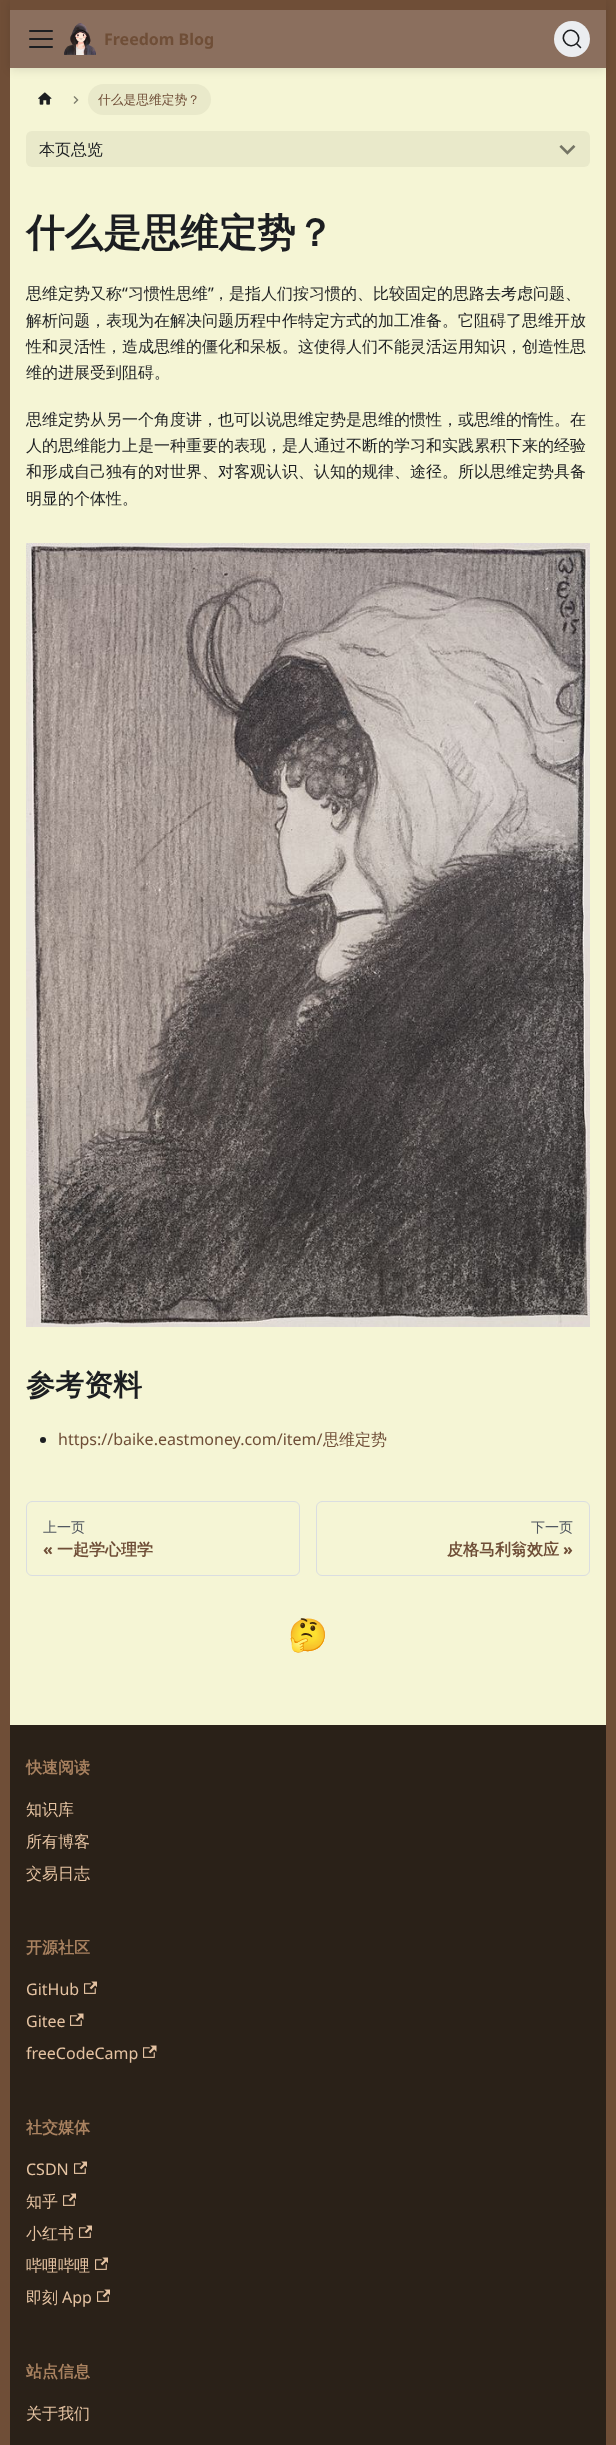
<!DOCTYPE html>
<meta charset="utf-8">
<style>body { margin: 0 } canvas { display: block }</style>
<canvas id="canvas" width="616" height="2445"></canvas>
<script type="module">
  const canvas = document.getElementById("canvas");
  const ctx = canvas.getContext("2d");
  ctx.miterLimit = 4;
  ctx.fontKerning = "normal";
  async function loadImage(src) {
    const img = new Image();
    img.src = src;
    await img.decode();
    return img;
  }

  ctx.fillStyle = "#6f4e37";
  ctx.fillRect(0, 0, 616, 2445);
  ctx.fillStyle = "#f5f5d5";
  ctx.fillRect(10, 68, 596, 1657);
  ctx.fillStyle = "#e9e9ca";
  ctx.beginPath();
  ctx.roundRect(88, 84, 123, 31, 15.5);
  ctx.fill();
  ctx.fillStyle = "rgba(0, 0, 0, 0.1)";
  ctx.filter = "blur(5px)";
  ctx.beginPath();
  ctx.rect(10, 2, 596, 68);
  ctx.fill();
  ctx.filter = "none";
  ctx.fillStyle = "#8b6f5e";
  ctx.fillRect(10, 10, 596, 58);
  ctx.fillStyle = "#6f4e37";
  ctx.fillRect(10, 0, 596, 10);
  ctx.drawImage(await loadImage("img1.png"), 29, 30, 24, 18);
  ctx.drawImage(await loadImage("img2.png"), 64, 23, 32, 32);
  ctx.font = "bold 16px Noto Sans";
  ctx.fillText("Freedom Blog", 104, 45);
  ctx.fillStyle = "#ebedf0";
  ctx.beginPath();
  ctx.arc(572, 39, 18, 0, Math.PI * 2);
  ctx.fill();
  ctx.beginPath();
  ctx.moveTo(576.5, 43.5);
  ctx.lineTo(580.5, 47.5);
  ctx.lineTo(576.5, 43.5);
  ctx.bezierCurveTo(569.5, 50.5, 558.5, 39.5, 565.5, 32.5);
  ctx.bezierCurveTo(572.5, 25.5, 583.5, 36.5, 576.5, 43.5);
  ctx.closePath();
  ctx.strokeStyle = "#1c1e21";
  ctx.lineWidth = 1.6;
  ctx.lineCap = "round";
  ctx.lineJoin = "round";
  ctx.stroke();
  ctx.drawImage(await loadImage("img3.png"), 38, 92, 14, 13);
  ctx.drawImage(await loadImage("img4.png"), 73, 96, 6, 8);
  ctx.font = "500 12.75px WenQuanYi Zen Hei";
  ctx.fillStyle = "#6f4e37";
  ctx.fillText("什么是思维定势？", 98, 104);
  ctx.fillStyle = "#e9e9ca";
  ctx.beginPath();
  ctx.roundRect(26, 131, 564, 36, 6);
  ctx.fill();
  ctx.font = "500 16px WenQuanYi Zen Hei";
  ctx.fillStyle = "#1c1e21";
  ctx.fillText("本页总览", 39, 155);
  ctx.drawImage(await loadImage("img5.png"), 559, 145, 17, 10);
  ctx.font = "bold 38.5px WenQuanYi Zen Hei";
  ctx.fillText("什么是思维定势？", 26, 246);
  ctx.font = "500 16px WenQuanYi Zen Hei";
  ctx.fillText("思维定势又称", 26, 299);
  ctx.font = "16px Noto Sans";
  ctx.fillText("“", 122, 299);
  ctx.font = "500 16px WenQuanYi Zen Hei";
  ctx.fillText("习惯性思维", 128, 299);
  ctx.font = "16px Noto Sans";
  ctx.fillText("”", 208, 299);
  ctx.font = "500 16px WenQuanYi Zen Hei";
  ctx.fillText("，是指人们按习惯的、比较固定的思路去考虑问题、", 213, 299);
  ctx.fillText("解析问题，表现为在解决问题历程中作特定方式的加工准备。它阻碍了思维开放", 26, 326);
  ctx.fillText("性和灵活性，造成思维的僵化和呆板。这使得人们不能灵活运用知识，创造性思", 26, 352);
  ctx.fillText("维的进展受到阻碍。", 26, 378);
  ctx.fillText("思维定势从另一个角度讲，也可以说思维定势是思维的惯性，或思维的惰性。在", 26, 425);
  ctx.fillText("人的思维能力上是一种重要的表现，是人通过不断的学习和实践累积下来的经验", 26, 451);
  ctx.fillText("和形成自己独有的对世界、对客观认识、认知的规律、途径。所以思维定势具备", 26, 477);
  ctx.fillText("明显的个体性。", 26, 504);
  ctx.drawImage(await loadImage("img6.png"), 26, 543, 564, 784);
  ctx.font = "bold 29px WenQuanYi Zen Hei";
  ctx.fillText("参考资料", 26, 1395);
  ctx.beginPath();
  ctx.arc(43, 1440, 3, 0, Math.PI * 2);
  ctx.fill();
  ctx.font = "16px Noto Sans";
  ctx.fillStyle = "#6f4e37";
  ctx.fillText("https://baike.eastmoney.com/item/", 58, 1445);
  ctx.font = "500 16px WenQuanYi Zen Hei";
  ctx.fillText("思维定势", 323, 1445);
  ctx.beginPath();
  ctx.roundRect(26.5, 1501.5, 273, 74, 5.5);
  ctx.strokeStyle = "#dadde1";
  ctx.lineWidth = 1;
  ctx.lineJoin = "miter";
  ctx.stroke();
  ctx.font = "500 14px WenQuanYi Zen Hei";
  ctx.fillStyle = "#525860";
  ctx.fillText("上一页", 43, 1532);
  ctx.font = "bold 16px Noto Sans";
  ctx.fillStyle = "#6f4e37";
  ctx.fillText("«", 43, 1555);
  ctx.font = "bold 16px WenQuanYi Zen Hei";
  ctx.fillText("一起学心理学", 57, 1555);
  ctx.beginPath();
  ctx.roundRect(316.5, 1501.5, 273, 74, 5.5);
  ctx.stroke();
  ctx.font = "500 14px WenQuanYi Zen Hei";
  ctx.fillStyle = "#525860";
  ctx.fillText("下一页", 531, 1532);
  ctx.font = "bold 16px WenQuanYi Zen Hei";
  ctx.fillStyle = "#6f4e37";
  ctx.fillText("皮格马利翁效应", 447, 1555);
  ctx.font = "bold 16px Noto Sans";
  ctx.fillText("»", 563, 1555);
  ctx.font = "32px Noto Color Emoji";
  ctx.fillStyle = "#1c1e21";
  ctx.fillText("🤔", 288, 1646);
  ctx.fillStyle = "#2a2118";
  ctx.fillRect(10, 1725, 596, 720);
  ctx.font = "bold 16px WenQuanYi Zen Hei";
  ctx.fillStyle = "#a98260";
  ctx.fillText("快速阅读", 26, 1773);
  ctx.font = "500 16px WenQuanYi Zen Hei";
  ctx.fillStyle = "#e5c3a2";
  ctx.fillText("知识库", 26, 1815);
  ctx.fillText("所有博客", 26, 1847);
  ctx.fillText("交易日志", 26, 1879);
  ctx.font = "bold 16px WenQuanYi Zen Hei";
  ctx.fillStyle = "#a98260";
  ctx.fillText("开源社区", 26, 1953);
  ctx.font = "16px Noto Sans";
  ctx.fillStyle = "#e5c3a2";
  ctx.fillText("GitHub", 26, 1995);
  ctx.drawImage(await loadImage("img7.png"), 84, 1981, 13, 13);
  ctx.fillText("Gitee", 26, 2027);
  ctx.drawImage(await loadImage("img8.png"), 70, 2013, 14, 13);
  ctx.fillText("freeCodeCamp", 26, 2059);
  ctx.drawImage(await loadImage("img8.png"), 143, 2045, 14, 13);
  ctx.font = "bold 16px WenQuanYi Zen Hei";
  ctx.fillStyle = "#a98260";
  ctx.fillText("社交媒体", 26, 2133);
  ctx.font = "16px Noto Sans";
  ctx.fillStyle = "#e5c3a2";
  ctx.fillText("CSDN", 26, 2175);
  ctx.drawImage(await loadImage("img7.png"), 74, 2161, 13, 13);
  ctx.font = "500 16px WenQuanYi Zen Hei";
  ctx.fillText("知乎", 26, 2207);
  ctx.drawImage(await loadImage("img7.png"), 63, 2193, 13, 13);
  ctx.fillText("小红书", 26, 2239);
  ctx.drawImage(await loadImage("img7.png"), 79, 2225, 13, 13);
  ctx.fillText("哔哩哔哩", 26, 2271);
  ctx.drawImage(await loadImage("img7.png"), 95, 2257, 13, 13);
  ctx.fillText("即刻", 26, 2303);
  ctx.font = "16px Noto Sans";
  ctx.fillText("App", 62, 2303);
  ctx.drawImage(await loadImage("img7.png"), 97, 2289, 13, 13);
  ctx.font = "bold 16px WenQuanYi Zen Hei";
  ctx.fillStyle = "#a98260";
  ctx.fillText("站点信息", 26, 2377);
  ctx.font = "500 16px WenQuanYi Zen Hei";
  ctx.fillStyle = "#e5c3a2";
  ctx.fillText("关于我们", 26, 2419);
</script>
